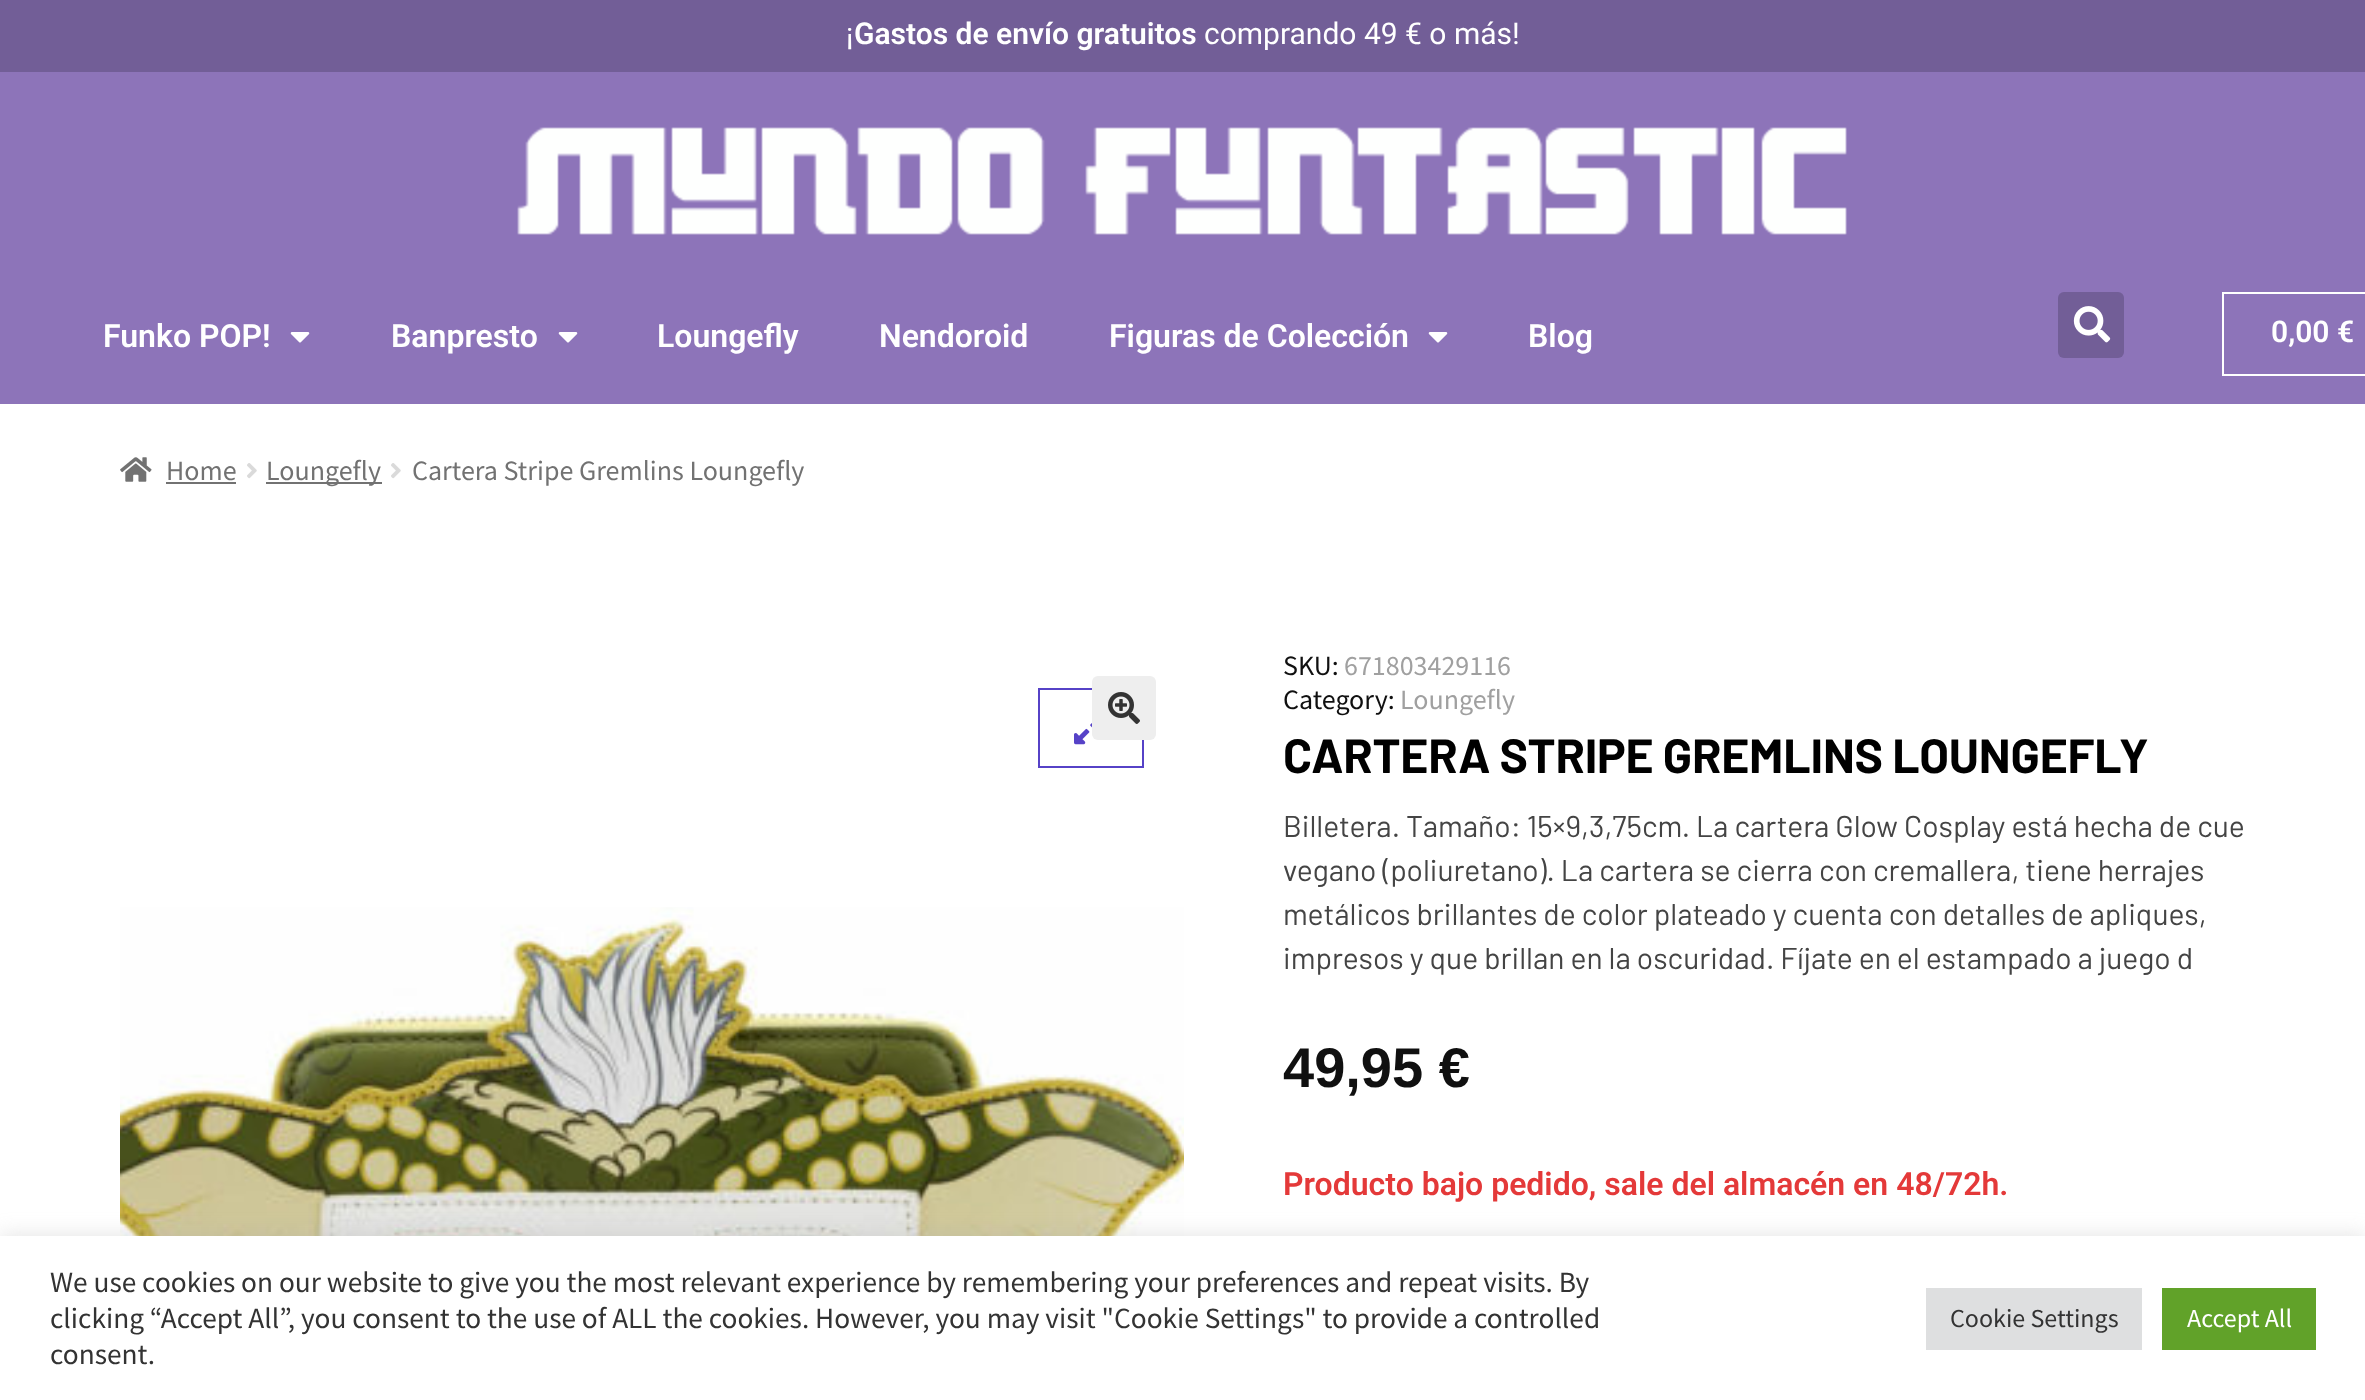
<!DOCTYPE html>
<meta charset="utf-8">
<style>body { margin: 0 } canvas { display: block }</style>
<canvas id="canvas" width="2365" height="1400"></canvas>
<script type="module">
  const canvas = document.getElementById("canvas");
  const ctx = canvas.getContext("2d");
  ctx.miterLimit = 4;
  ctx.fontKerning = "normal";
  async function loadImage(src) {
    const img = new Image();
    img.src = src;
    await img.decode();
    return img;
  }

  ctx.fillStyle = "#ffffff";
  ctx.fillRect(0, 0, 2365, 1400);
  ctx.fillStyle = "#725e97";
  ctx.fillRect(0, 0, 2365, 72);
  ctx.font = "30px Roboto";
  ctx.fillStyle = "#ffffff";
  ctx.fillText("¡", 846, 44);
  ctx.font = "600 30px Roboto";
  ctx.fillText("Gastos de envío gratuitos", 854, 44);
  ctx.font = "30px Roboto";
  ctx.fillText("comprando 49 € o más!", 1204, 44);
  ctx.fillStyle = "#8d74b9";
  ctx.fillRect(0, 72, 2365, 332);
  ctx.drawImage(await loadImage("img1.png"), 517, 127, 1330, 108);
  ctx.font = "600 32px Roboto";
  ctx.fillStyle = "#ffffff";
  ctx.fillText("Funko POP!", 103, 347);
  ctx.drawImage(await loadImage("img2.png"), 290, 332, 20, 11);
  ctx.fillText("Banpresto", 391, 347);
  ctx.drawImage(await loadImage("img2.png"), 558, 332, 20, 11);
  ctx.fillText("Loungefly", 657, 347);
  ctx.fillText("Nendoroid", 879, 347);
  ctx.fillText("Figuras de Colección", 1109, 347);
  ctx.drawImage(await loadImage("img2.png"), 1428, 332, 20, 11);
  ctx.fillText("Blog", 1528, 347);
  ctx.fillStyle = "#725e97";
  ctx.beginPath();
  ctx.roundRect(2058, 292, 66, 66, 6);
  ctx.fill();
  ctx.drawImage(await loadImage("img3.png"), 2073, 306, 38, 37);
  ctx.strokeStyle = "#ffffff";
  ctx.lineWidth = 2;
  ctx.strokeRect(2223, 293, 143, 82);
  ctx.font = "600 30px Roboto";
  ctx.fillStyle = "#ffffff";
  ctx.fillText("0,00 €", 2271, 342);
  ctx.drawImage(await loadImage("img4.png"), 120, 457, 32, 25);
  ctx.font = "28px Source Sans Pro";
  ctx.fillStyle = "#727272";
  ctx.fillText("Home", 166, 480);
  ctx.fillRect(166, 482, 70, 2);
  ctx.drawImage(await loadImage("img5.png"), 247, 463, 10, 16);
  ctx.fillRect(266, 482, 116, 2);
  ctx.fillText("Loungefly", 266, 480);
  ctx.drawImage(await loadImage("img5.png"), 391, 463, 10, 16);
  ctx.fillText("Cartera Stripe Gremlins Loungefly", 412, 480);
  ctx.strokeStyle = "#5642c7";
  ctx.strokeRect(1039, 689, 104, 78);
  ctx.fillStyle = "#eeeeee";
  ctx.beginPath();
  ctx.roundRect(1092, 676, 64, 64, 6);
  ctx.fill();
  ctx.drawImage(await loadImage("img6.png"), 1108, 692, 32, 32);
  ctx.drawImage(await loadImage("img7.png"), 120, 907, 1064, 329);
  ctx.drawImage(await loadImage("img8.png"), 1074, 723, 18, 22);
  ctx.fillStyle = "#101010";
  ctx.fillText("SKU:", 1283, 675);
  ctx.fillStyle = "#a0a0a0";
  ctx.fillText("671803429116", 1344, 675);
  ctx.fillStyle = "#101010";
  ctx.fillText("Category:", 1283, 709);
  ctx.fillStyle = "#a0a0a0";
  ctx.fillText("Loungefly", 1400, 709);
  ctx.letterSpacing = "-0.2px";
  ctx.font = "bold 48px Barlow";
  ctx.fillStyle = "#000000";
  ctx.fillText("CARTERA STRIPE GREMLINS LOUNGEFLY", 1283, 773);
  ctx.letterSpacing = "0px";
  ctx.font = "30px Barlow";
  ctx.fillStyle = "#444444";
  ctx.fillText("Billetera. Tamaño: 15×9,3,75cm. La cartera Glow Cosplay está hecha de cue", 1283, 837);
  ctx.fillText("vegano (poliuretano). La cartera se cierra con cremallera, tiene herrajes", 1283, 881);
  ctx.fillText("metálicos brillantes de color plateado y cuenta con detalles de apliques,", 1283, 925);
  ctx.fillText("impresos y que brillan en la oscuridad. Fíjate en el estampado a juego d", 1283, 969);
  ctx.font = "bold 56px Liberation Sans";
  ctx.fillStyle = "#101010";
  ctx.fillText("49,95 €", 1283, 1087);
  ctx.font = "600 32px Roboto";
  ctx.fillStyle = "#e43939";
  ctx.fillText("Producto bajo pedido, sale del almacén en 48/72h.", 1283, 1195);
  ctx.fillStyle = "rgba(172, 171, 171, 0.3)";
  ctx.filter = "blur(10px)";
  ctx.beginPath();
  ctx.rect(0, 1234, 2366, 164);
  ctx.fill();
  ctx.filter = "none";
  ctx.fillStyle = "#ffffff";
  ctx.fillRect(0, 1236, 2365, 164);
  ctx.font = "29.33px Source Sans Pro";
  ctx.fillStyle = "#333333";
  ctx.fillText("We use cookies on our website to give you the most relevant experience by remembering your preferences and repeat visits. By", 50, 1292);
  ctx.fillText("clicking “Accept All”, you consent to the use of ALL the cookies. However, you may visit \"Cookie Settings\" to provide a controlled", 50, 1328);
  ctx.fillText("consent.", 50, 1364);
  ctx.fillStyle = "#dedfe0";
  ctx.fillRect(1926, 1288, 216, 62);
  ctx.font = "26px Source Sans Pro";
  ctx.fillStyle = "#333333";
  ctx.fillText("Cookie Settings", 1950, 1327);
  ctx.fillStyle = "#61a229";
  ctx.fillRect(2162, 1288, 154, 62);
  ctx.fillStyle = "#ffffff";
  ctx.fillText("Accept All", 2187, 1327);
</script>
